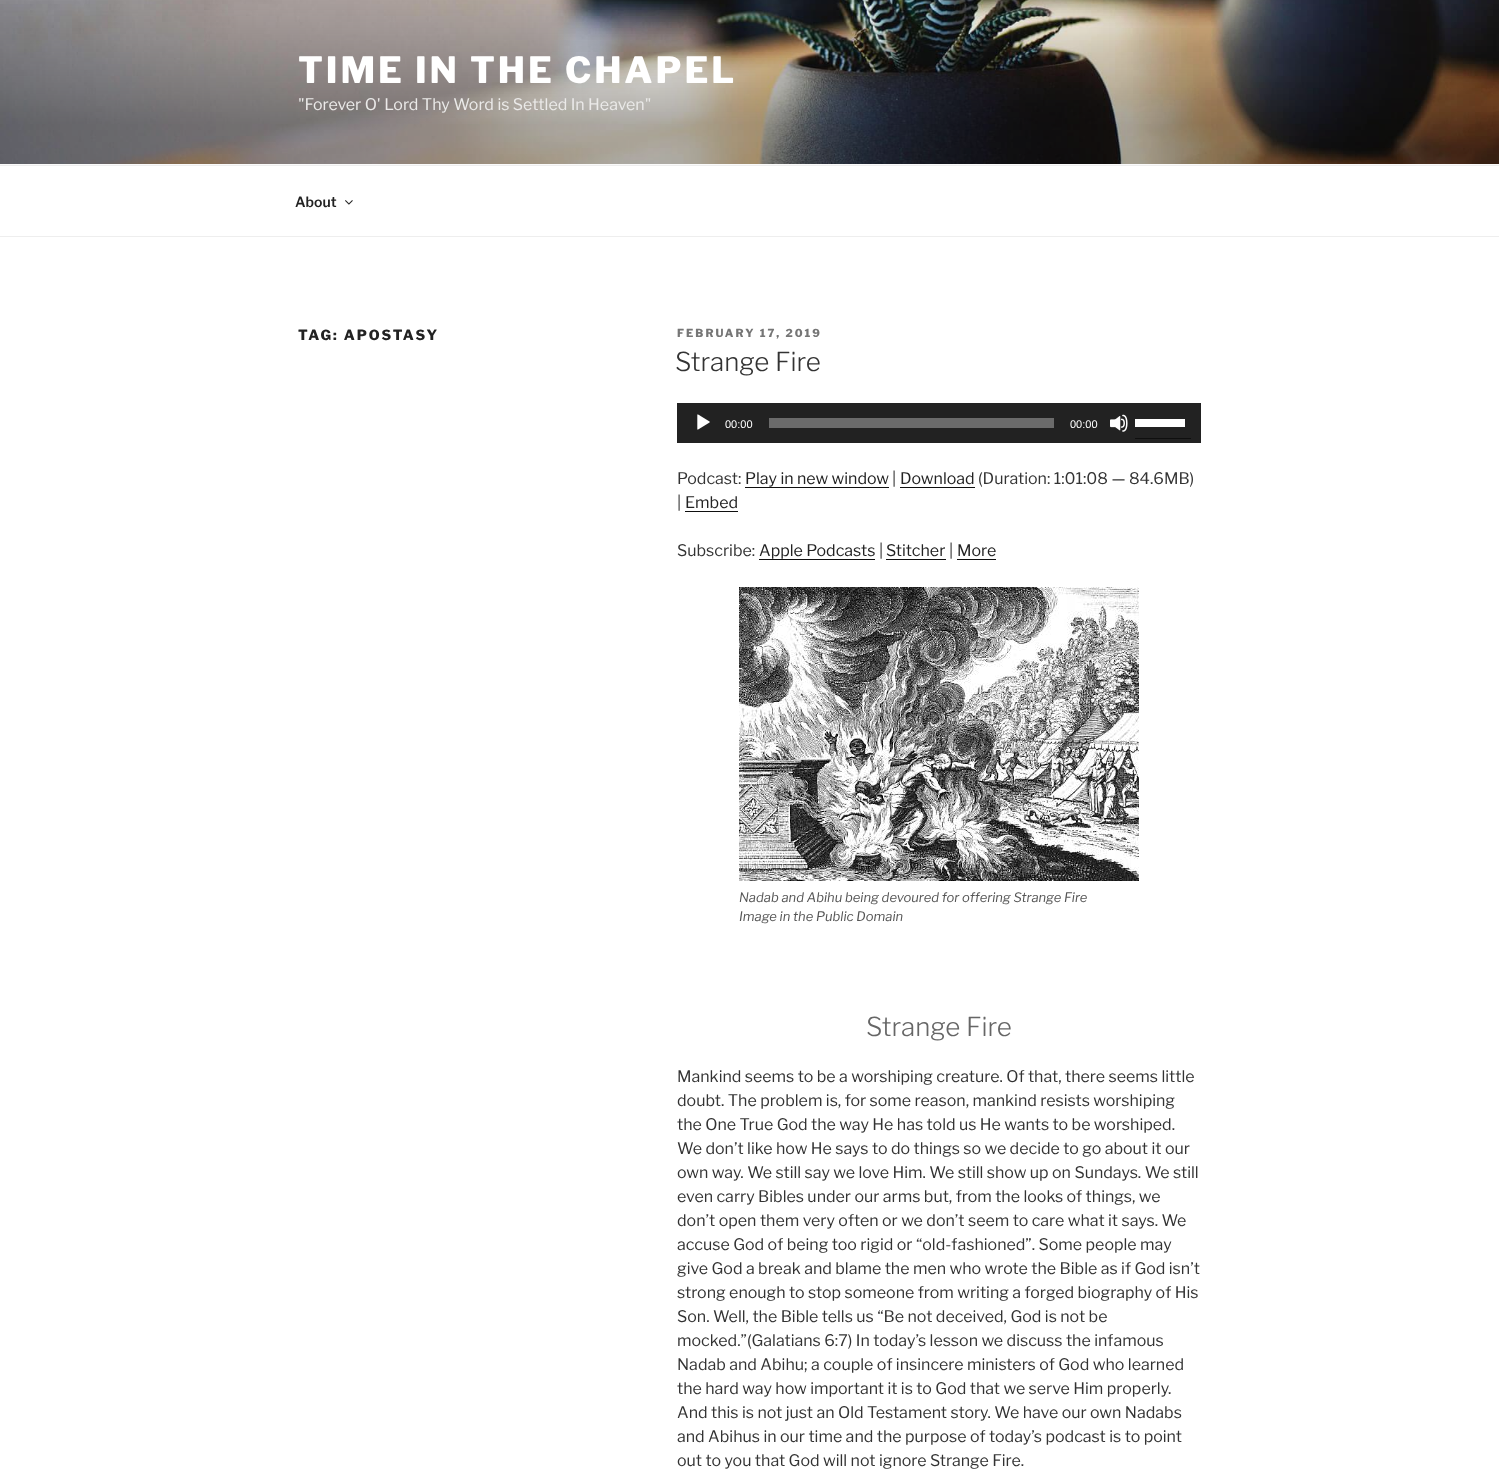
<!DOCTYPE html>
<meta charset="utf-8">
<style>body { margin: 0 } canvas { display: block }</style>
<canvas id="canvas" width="1499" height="1478"></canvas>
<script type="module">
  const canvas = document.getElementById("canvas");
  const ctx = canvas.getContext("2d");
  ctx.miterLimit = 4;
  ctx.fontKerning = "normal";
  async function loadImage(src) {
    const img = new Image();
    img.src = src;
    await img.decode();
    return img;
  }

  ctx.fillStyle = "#ffffff";
  ctx.fillRect(0, 0, 1499, 1478);
  ctx.fillStyle = "#fafafa";
  ctx.fillRect(0, 164, 1499, 1);
  ctx.drawImage(await loadImage("img1.png"), 0, 0, 1499, 164);
  ctx.letterSpacing = "2.9px";
  ctx.font = "800 36px Libre Franklin";
  ctx.fillStyle = "#ffffff";
  ctx.fillText("TIME IN THE CHAPEL", 298, 83);
  ctx.letterSpacing = "0px";
  ctx.font = "16px Libre Franklin";
  ctx.fillStyle = "#ebeae9";
  ctx.fillText("\"Forever O' Lord Thy Word is Settled In Heaven\"", 298, 110);
  ctx.fillStyle = "#eeeeee";
  ctx.fillRect(0, 165, 1499, 1);
  ctx.fillRect(0, 236, 1499, 1);
  ctx.font = "600 14px Libre Franklin";
  ctx.fillStyle = "#222222";
  ctx.fillText("About", 295, 207);
  ctx.drawImage(await loadImage("img2.png"), 345, 200, 8, 5);
  ctx.letterSpacing = "2px";
  ctx.font = "800 14px Libre Franklin";
  ctx.fillText("TAG: APOSTASY", 298, 340);
  ctx.font = "800 11px Libre Franklin";
  ctx.fillStyle = "#767676";
  ctx.fillText("FEBRUARY 17, 2019", 677, 337);
  ctx.letterSpacing = "0px";
  ctx.font = "300 26px Libre Franklin";
  ctx.fillStyle = "#333333";
  ctx.fillText("Strange Fire", 675, 371);
  ctx.fillStyle = "#222222";
  ctx.fillRect(677, 403, 524, 40);
  ctx.drawImage(await loadImage("img3.png"), 697, 414, 13, 16);
  ctx.font = "11px Liberation Sans";
  ctx.fillStyle = "#ffffff";
  ctx.fillText("00:00", 725, 428);
  ctx.fillStyle = "#6b6b6b";
  ctx.fillRect(769, 418, 285, 10);
  ctx.fillStyle = "#ffffff";
  ctx.fillText("00:00", 1070, 428);
  ctx.drawImage(await loadImage("img4.png"), 1110, 414, 18, 18);
  ctx.fillStyle = "#0f0f0f";
  ctx.fillRect(1135, 438, 56, 1);
  ctx.fillStyle = "#ffffff";
  ctx.fillRect(1135, 419, 50, 8);
  ctx.font = "16px Libre Franklin";
  ctx.fillStyle = "#333333";
  ctx.fillText("Podcast:", 677, 484);
  ctx.fillStyle = "#222222";
  ctx.fillText("Play in new window", 745, 484);
  ctx.fillStyle = "#0f0f0f";
  ctx.fillRect(745, 487, 144, 1);
  ctx.fillStyle = "#333333";
  ctx.fillText("|", 892, 484);
  ctx.fillStyle = "#222222";
  ctx.fillText("Download", 900, 484);
  ctx.fillStyle = "#0f0f0f";
  ctx.fillRect(900, 487, 75, 1);
  ctx.fillStyle = "#333333";
  ctx.fillText("(Duration: 1:01:08 — 84.6MB)", 978, 484);
  ctx.fillText("|", 677, 508);
  ctx.fillStyle = "#222222";
  ctx.fillText("Embed", 685, 508);
  ctx.fillStyle = "#0f0f0f";
  ctx.fillRect(685, 511, 53, 1);
  ctx.fillStyle = "#333333";
  ctx.fillText("Subscribe:", 677, 556);
  ctx.fillStyle = "#222222";
  ctx.fillText("Apple Podcasts", 759, 556);
  ctx.fillStyle = "#0f0f0f";
  ctx.fillRect(759, 559, 116, 1);
  ctx.fillStyle = "#333333";
  ctx.fillText("|", 879, 556);
  ctx.fillStyle = "#222222";
  ctx.fillText("Stitcher", 886, 556);
  ctx.fillStyle = "#0f0f0f";
  ctx.fillRect(886, 559, 60, 1);
  ctx.fillStyle = "#333333";
  ctx.fillText("|", 949, 556);
  ctx.fillStyle = "#222222";
  ctx.fillText("More", 957, 556);
  ctx.fillStyle = "#0f0f0f";
  ctx.fillRect(957, 559, 39, 1);
  ctx.drawImage(await loadImage("img5.png"), 739, 587, 400, 294);
  ctx.font = "italic 13px Libre Franklin";
  ctx.fillStyle = "#555555";
  ctx.fillText("Nadab and Abihu being devoured for offering Strange Fire", 739, 902);
  ctx.fillText("Image in the Public Domain", 739, 921);
  ctx.font = "300 26px Libre Franklin";
  ctx.fillStyle = "#666666";
  ctx.fillText("Strange Fire", 866, 1036);
  ctx.font = "16px Libre Franklin";
  ctx.fillStyle = "#333333";
  ctx.fillText("Mankind seems to be a worshiping creature. Of that, there seems little", 677, 1082);
  ctx.fillText("doubt. The problem is, for some reason, mankind resists worshiping", 677, 1106);
  ctx.fillText("the One True God the way He has told us He wants to be worshiped.", 677, 1130);
  ctx.fillText("We don’t like how He says to do things so we decide to go about it our", 677, 1154);
  ctx.fillText("own way. We still say we love Him. We still show up on Sundays. We still", 677, 1178);
  ctx.fillText("even carry Bibles under our arms but, from the looks of things, we", 677, 1202);
  ctx.fillText("don’t open them very often or we don’t seem to care what it says. We", 677, 1226);
  ctx.fillText("accuse God of being too rigid or “old-fashioned”. Some people may", 677, 1250);
  ctx.fillText("give God a break and blame the men who wrote the Bible as if God isn’t", 677, 1274);
  ctx.fillText("strong enough to stop someone from writing a forged biography of His", 677, 1298);
  ctx.fillText("Son. Well, the Bible tells us “Be not deceived, God is not be", 677, 1322);
  ctx.fillText("mocked.”(Galatians 6:7) In today’s lesson we discuss the infamous", 677, 1346);
  ctx.fillText("Nadab and Abihu; a couple of insincere ministers of God who learned", 677, 1370);
  ctx.fillText("the hard way how important it is to God that we serve Him properly.", 677, 1394);
  ctx.fillText("And this is not just an Old Testament story. We have our own Nadabs", 677, 1418);
  ctx.fillText("and Abihus in our time and the purpose of today’s podcast is to point", 677, 1442);
  ctx.fillText("out to you that God will not ignore Strange Fire.", 677, 1466);
</script>
